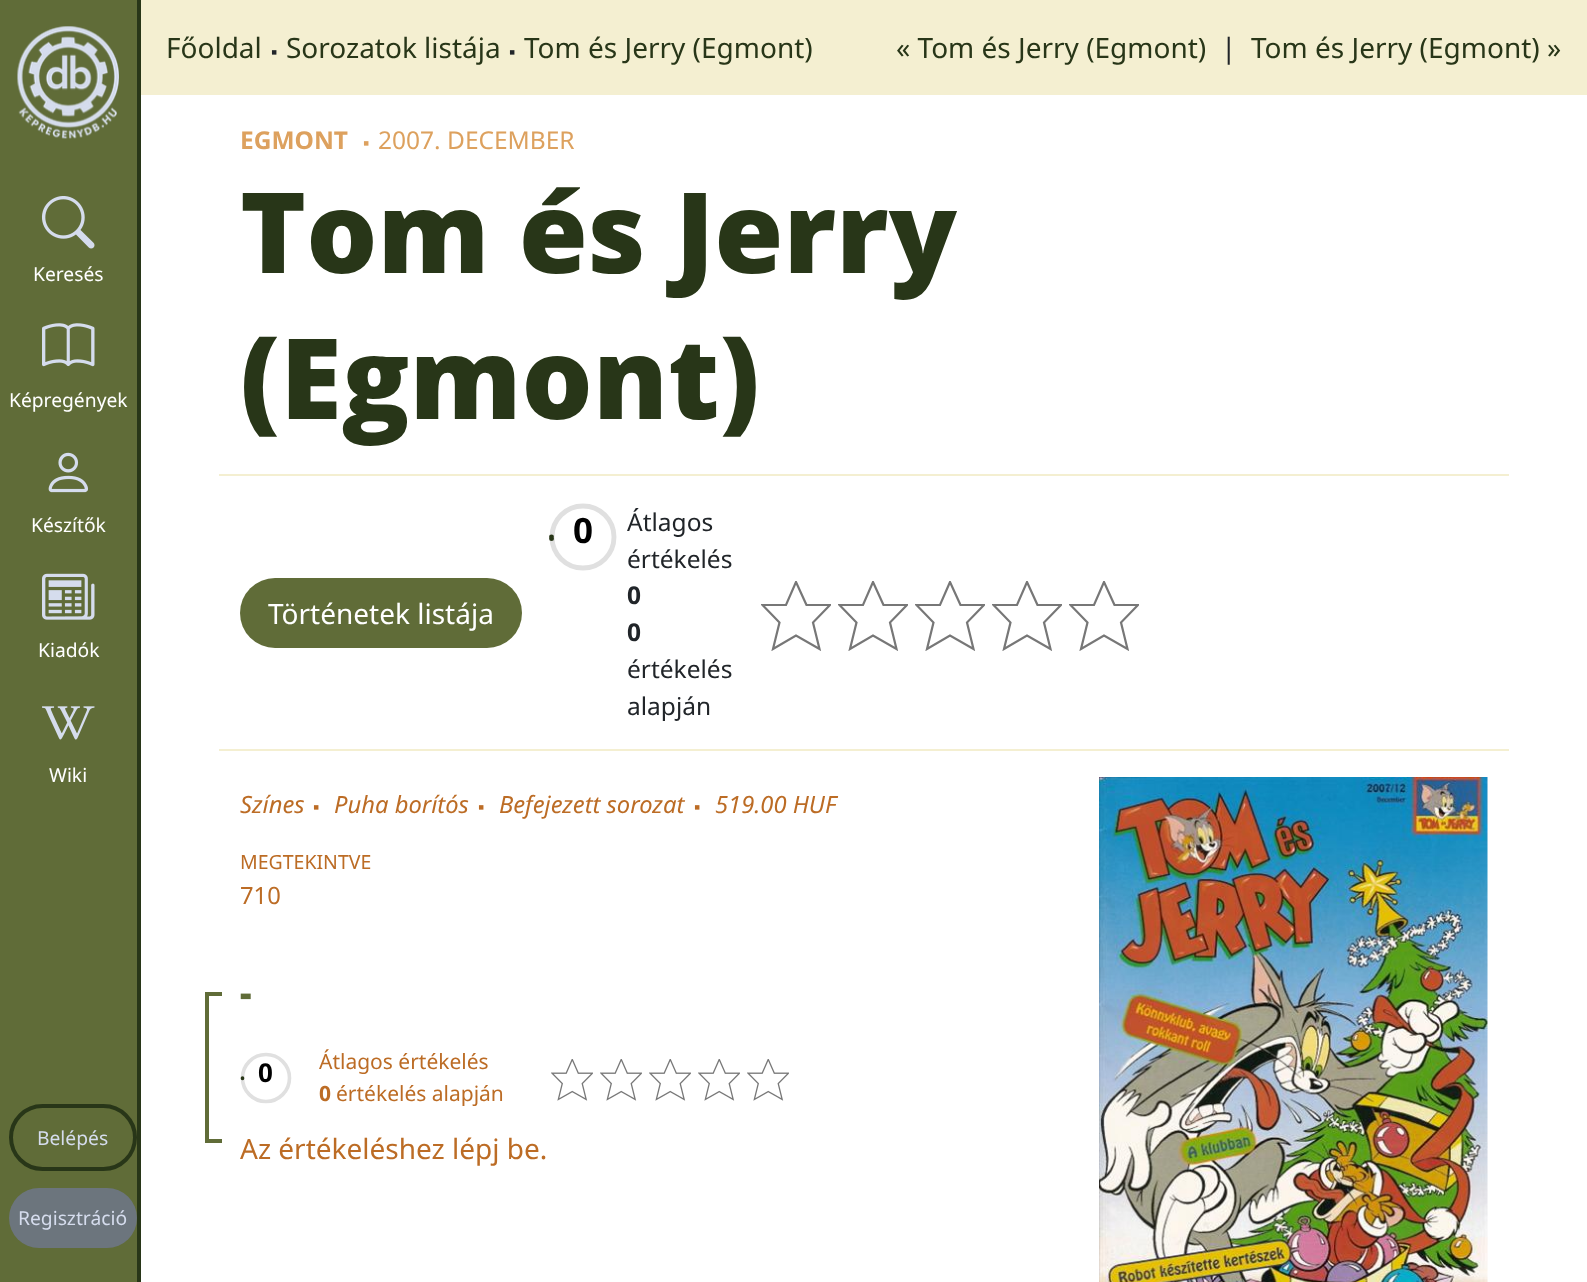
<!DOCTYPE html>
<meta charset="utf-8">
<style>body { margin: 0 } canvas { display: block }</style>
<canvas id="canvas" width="1587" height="1282"></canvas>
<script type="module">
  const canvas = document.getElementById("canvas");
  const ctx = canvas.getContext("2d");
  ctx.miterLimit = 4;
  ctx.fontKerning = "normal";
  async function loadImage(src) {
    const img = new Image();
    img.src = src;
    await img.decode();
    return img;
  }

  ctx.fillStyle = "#ffffff";
  ctx.fillRect(0, 0, 1587, 1282);
  ctx.fillStyle = "#606c38";
  ctx.fillRect(0, 0, 137, 1282);
  ctx.fillStyle = "#283618";
  ctx.fillRect(137, 0, 4, 1282);
  ctx.drawImage(await loadImage("img1.png"), 17, 26, 102, 113);
  ctx.drawImage(await loadImage("img2.png"), 41, 196, 54, 53);
  ctx.font = "19.25px Noto Sans";
  ctx.fillStyle = "#ffffff";
  ctx.fillText("Keresés", 33, 281);
  ctx.drawImage(await loadImage("img3.png"), 42, 323, 53, 44);
  ctx.fillText("Képregények", 9, 407);
  ctx.drawImage(await loadImage("img4.png"), 48, 452, 40, 41);
  ctx.fillText("Készítők", 31, 532);
  ctx.drawImage(await loadImage("img5.png"), 42, 573, 53, 47);
  ctx.fillText("Kiadók", 38, 657);
  ctx.drawImage(await loadImage("img6.png"), 42, 706, 53, 34);
  ctx.fillText("Wiki", 49, 782);
  ctx.beginPath();
  ctx.roundRect(11, 1106, 124, 63, 31.5);
  ctx.strokeStyle = "#283618";
  ctx.lineWidth = 4;
  ctx.stroke();
  ctx.fillStyle = "#d5dced";
  ctx.fillText("Belépés", 37, 1145);
  ctx.fillStyle = "#6c757d";
  ctx.beginPath();
  ctx.roundRect(9, 1188, 128, 60, 30);
  ctx.fill();
  ctx.fillStyle = "#d5dced";
  ctx.fillText("Regisztráció", 18, 1225);
  ctx.fillStyle = "#f4efd1";
  ctx.fillRect(141, 0, 1446, 95);
  ctx.font = "28px Noto Sans";
  ctx.fillStyle = "#283618";
  ctx.fillText("Főoldal", 166, 58);
  ctx.font = "18px Liberation Sans";
  ctx.fillStyle = "#212529";
  ctx.fillText("▪", 271, 58);
  ctx.font = "28px Noto Sans";
  ctx.fillStyle = "#283618";
  ctx.fillText("Sorozatok listája", 286, 58);
  ctx.font = "18px Liberation Sans";
  ctx.fillStyle = "#212529";
  ctx.fillText("▪", 509, 58);
  ctx.font = "28px Noto Sans";
  ctx.fillStyle = "#283618";
  ctx.fillText("Tom és Jerry (Egmont)", 524, 58);
  ctx.fillText("« Tom és Jerry (Egmont)", 896, 58);
  ctx.fillStyle = "#212529";
  ctx.fillText("|", 1221, 58);
  ctx.fillStyle = "#283618";
  ctx.fillText("Tom és Jerry (Egmont) »", 1251, 58);
  ctx.font = "bold 24.5px Noto Sans";
  ctx.fillStyle = "#dda15e";
  ctx.fillText("EGMONT", 240, 149);
  ctx.font = "18px Liberation Sans";
  ctx.fillText("▪", 363, 149);
  ctx.font = "24.5px Noto Sans";
  ctx.fillText("2007. DECEMBER", 378, 149);
  ctx.font = "800 112px Open Sans";
  ctx.fillStyle = "#283618";
  ctx.fillText("Tom és Jerry", 240, 273);
  ctx.fillText("(Egmont)", 240, 419);
  ctx.fillStyle = "#f4efd1";
  ctx.fillRect(219, 474, 1290, 2);
  ctx.fillRect(219, 749, 1290, 2);
  ctx.fillStyle = "#606c38";
  ctx.beginPath();
  ctx.roundRect(240, 578, 282, 70, 35);
  ctx.fill();
  ctx.font = "28px Noto Sans";
  ctx.fillStyle = "#ffffff";
  ctx.fillText("Történetek listája", 268, 624);
  ctx.beginPath();
  ctx.arc(583, 537, 31, 0, Math.PI * 2);
  ctx.strokeStyle = "#e0e0e0";
  ctx.lineWidth = 4.9;
  ctx.stroke();
  ctx.font = "bold 35px Noto Sans";
  ctx.fillStyle = "#000000";
  ctx.fillText("0", 573, 543);
  ctx.beginPath();
  ctx.moveTo(551.5, 537);
  ctx.bezierCurveTo(551.5, 520, 565.5, 506, 583, 506);
  ctx.bezierCurveTo(600, 506, 614, 520, 614, 537);
  ctx.bezierCurveTo(614, 554.5, 600, 568.5, 583, 568.5);
  ctx.bezierCurveTo(565.5, 568.5, 551.5, 554.5, 551.5, 537);
  ctx.closePath();
  ctx.strokeStyle = "#283618";
  ctx.lineCap = "round";
  ctx.setLineDash([0, 194.44]);
  ctx.stroke();
  ctx.font = "24.5px Noto Sans";
  ctx.fillStyle = "#212529";
  ctx.fillText("Átlagos", 627, 531);
  ctx.fillText("értékelés", 627, 568);
  ctx.font = "bold 24.5px Noto Sans";
  ctx.fillText("0", 627, 604);
  ctx.fillText("0", 627, 641);
  ctx.font = "24.5px Noto Sans";
  ctx.fillText("értékelés", 627, 678);
  ctx.fillText("alapján", 627, 715);
  ctx.save();
  ctx.beginPath();
  ctx.rect(761, 581, 70, 70);
  ctx.clip();
  ctx.beginPath();
  ctx.moveTo(806.5, 605);
  ctx.lineTo(796, 582);
  ctx.lineTo(786, 605);
  ctx.lineTo(762.5, 605);
  ctx.lineTo(779.5, 622.5);
  ctx.lineTo(773, 649);
  ctx.lineTo(796, 635.5);
  ctx.lineTo(819.5, 649);
  ctx.lineTo(813, 622.5);
  ctx.lineTo(830, 605);
  ctx.closePath();
  ctx.strokeStyle = "#777777";
  ctx.lineWidth = 2.2;
  ctx.lineCap = "butt";
  ctx.setLineDash([]);
  ctx.stroke();
  ctx.restore();
  ctx.save();
  ctx.beginPath();
  ctx.rect(838, 581, 70, 70);
  ctx.clip();
  ctx.beginPath();
  ctx.moveTo(883.5, 605);
  ctx.lineTo(873, 582);
  ctx.lineTo(863, 605);
  ctx.lineTo(839.5, 605);
  ctx.lineTo(856.5, 622.5);
  ctx.lineTo(850, 649);
  ctx.lineTo(873, 635.5);
  ctx.lineTo(896.5, 649);
  ctx.lineTo(890, 622.5);
  ctx.lineTo(907, 605);
  ctx.closePath();
  ctx.strokeStyle = "#777777";
  ctx.lineWidth = 2.2;
  ctx.lineCap = "butt";
  ctx.setLineDash([]);
  ctx.stroke();
  ctx.restore();
  ctx.save();
  ctx.beginPath();
  ctx.rect(915, 581, 70, 70);
  ctx.clip();
  ctx.beginPath();
  ctx.moveTo(960.5, 605);
  ctx.lineTo(950, 582);
  ctx.lineTo(940, 605);
  ctx.lineTo(916.5, 605);
  ctx.lineTo(933.5, 622.5);
  ctx.lineTo(927, 649);
  ctx.lineTo(950, 635.5);
  ctx.lineTo(973.5, 649);
  ctx.lineTo(967, 622.5);
  ctx.lineTo(984, 605);
  ctx.closePath();
  ctx.strokeStyle = "#777777";
  ctx.lineWidth = 2.2;
  ctx.lineCap = "butt";
  ctx.setLineDash([]);
  ctx.stroke();
  ctx.restore();
  ctx.save();
  ctx.beginPath();
  ctx.rect(992, 581, 70, 70);
  ctx.clip();
  ctx.beginPath();
  ctx.moveTo(1037.5, 605);
  ctx.lineTo(1027, 582);
  ctx.lineTo(1017, 605);
  ctx.lineTo(993.5, 605);
  ctx.lineTo(1010.5, 622.5);
  ctx.lineTo(1004, 649);
  ctx.lineTo(1027, 635.5);
  ctx.lineTo(1050.5, 649);
  ctx.lineTo(1044, 622.5);
  ctx.lineTo(1061, 605);
  ctx.closePath();
  ctx.strokeStyle = "#777777";
  ctx.lineWidth = 2.2;
  ctx.lineCap = "butt";
  ctx.setLineDash([]);
  ctx.stroke();
  ctx.restore();
  ctx.save();
  ctx.beginPath();
  ctx.rect(1069, 581, 70, 70);
  ctx.clip();
  ctx.beginPath();
  ctx.moveTo(1114.5, 605);
  ctx.lineTo(1104, 582);
  ctx.lineTo(1094, 605);
  ctx.lineTo(1070.5, 605);
  ctx.lineTo(1087.5, 622.5);
  ctx.lineTo(1081, 649);
  ctx.lineTo(1104, 635.5);
  ctx.lineTo(1127.5, 649);
  ctx.lineTo(1121, 622.5);
  ctx.lineTo(1138, 605);
  ctx.closePath();
  ctx.strokeStyle = "#777777";
  ctx.lineWidth = 2.2;
  ctx.lineCap = "butt";
  ctx.setLineDash([]);
  ctx.stroke();
  ctx.restore();
  ctx.font = "italic 23.75px Noto Sans";
  ctx.fillStyle = "#bc6c25";
  ctx.fillText("Színes", 240, 813);
  ctx.font = "italic 18px Liberation Sans";
  ctx.fillText("▪", 313, 813);
  ctx.font = "italic 23.75px Noto Sans";
  ctx.fillText("Puha borítós", 334, 813);
  ctx.font = "italic 18px Liberation Sans";
  ctx.fillText("▪", 478, 813);
  ctx.font = "italic 23.75px Noto Sans";
  ctx.fillText("Befejezett sorozat", 499, 813);
  ctx.font = "italic 18px Liberation Sans";
  ctx.fillText("▪", 694, 813);
  ctx.font = "italic 23.75px Noto Sans";
  ctx.fillText("519.00 HUF", 715, 813);
  ctx.font = "19.5px Noto Sans";
  ctx.fillText("MEGTEKINTVE", 240, 869);
  ctx.font = "23.75px Noto Sans";
  ctx.fillText("710", 240, 904);
  ctx.fillStyle = "#606c38";
  ctx.fillRect(205, 992, 4, 151);
  ctx.fillRect(205, 992, 17, 4);
  ctx.font = "800 36px Open Sans";
  ctx.fillText("-", 240, 1006);
  ctx.fillRect(205, 1139, 17, 4);
  ctx.beginPath();
  ctx.arc(266, 1078, 23.5, 0, Math.PI * 2);
  ctx.strokeStyle = "#e0e0e0";
  ctx.lineWidth = 3.6;
  ctx.setLineDash([]);
  ctx.stroke();
  ctx.font = "bold 26px Noto Sans";
  ctx.fillStyle = "#000000";
  ctx.fillText("0", 258, 1082);
  ctx.beginPath();
  ctx.moveTo(242.5, 1078);
  ctx.bezierCurveTo(242.5, 1047.5, 289.5, 1047.5, 289.5, 1078);
  ctx.bezierCurveTo(289.5, 1108.5, 242.5, 1108.5, 242.5, 1078);
  ctx.closePath();
  ctx.strokeStyle = "#283618";
  ctx.setLineDash([0, 145.83]);
  ctx.stroke();
  ctx.font = "21px Noto Sans";
  ctx.fillStyle = "#bc6c25";
  ctx.fillText("Átlagos értékelés", 319, 1069);
  ctx.font = "bold 21px Noto Sans";
  ctx.fillText("0", 319, 1101);
  ctx.font = "21px Noto Sans";
  ctx.fillText("értékelés alapján", 336, 1101);
  ctx.drawImage(await loadImage("img7.png"), 551, 1059, 42, 42);
  ctx.drawImage(await loadImage("img7.png"), 600, 1059, 42, 42);
  ctx.drawImage(await loadImage("img7.png"), 649, 1059, 42, 42);
  ctx.drawImage(await loadImage("img7.png"), 698, 1059, 42, 42);
  ctx.drawImage(await loadImage("img7.png"), 747, 1059, 42, 42);
  ctx.font = "28px Noto Sans";
  ctx.fillText("Az értékeléshez lépj be.", 240, 1159);
  ctx.drawImage(await loadImage("img8.png"), 1099, 777, 389, 505);
</script>
